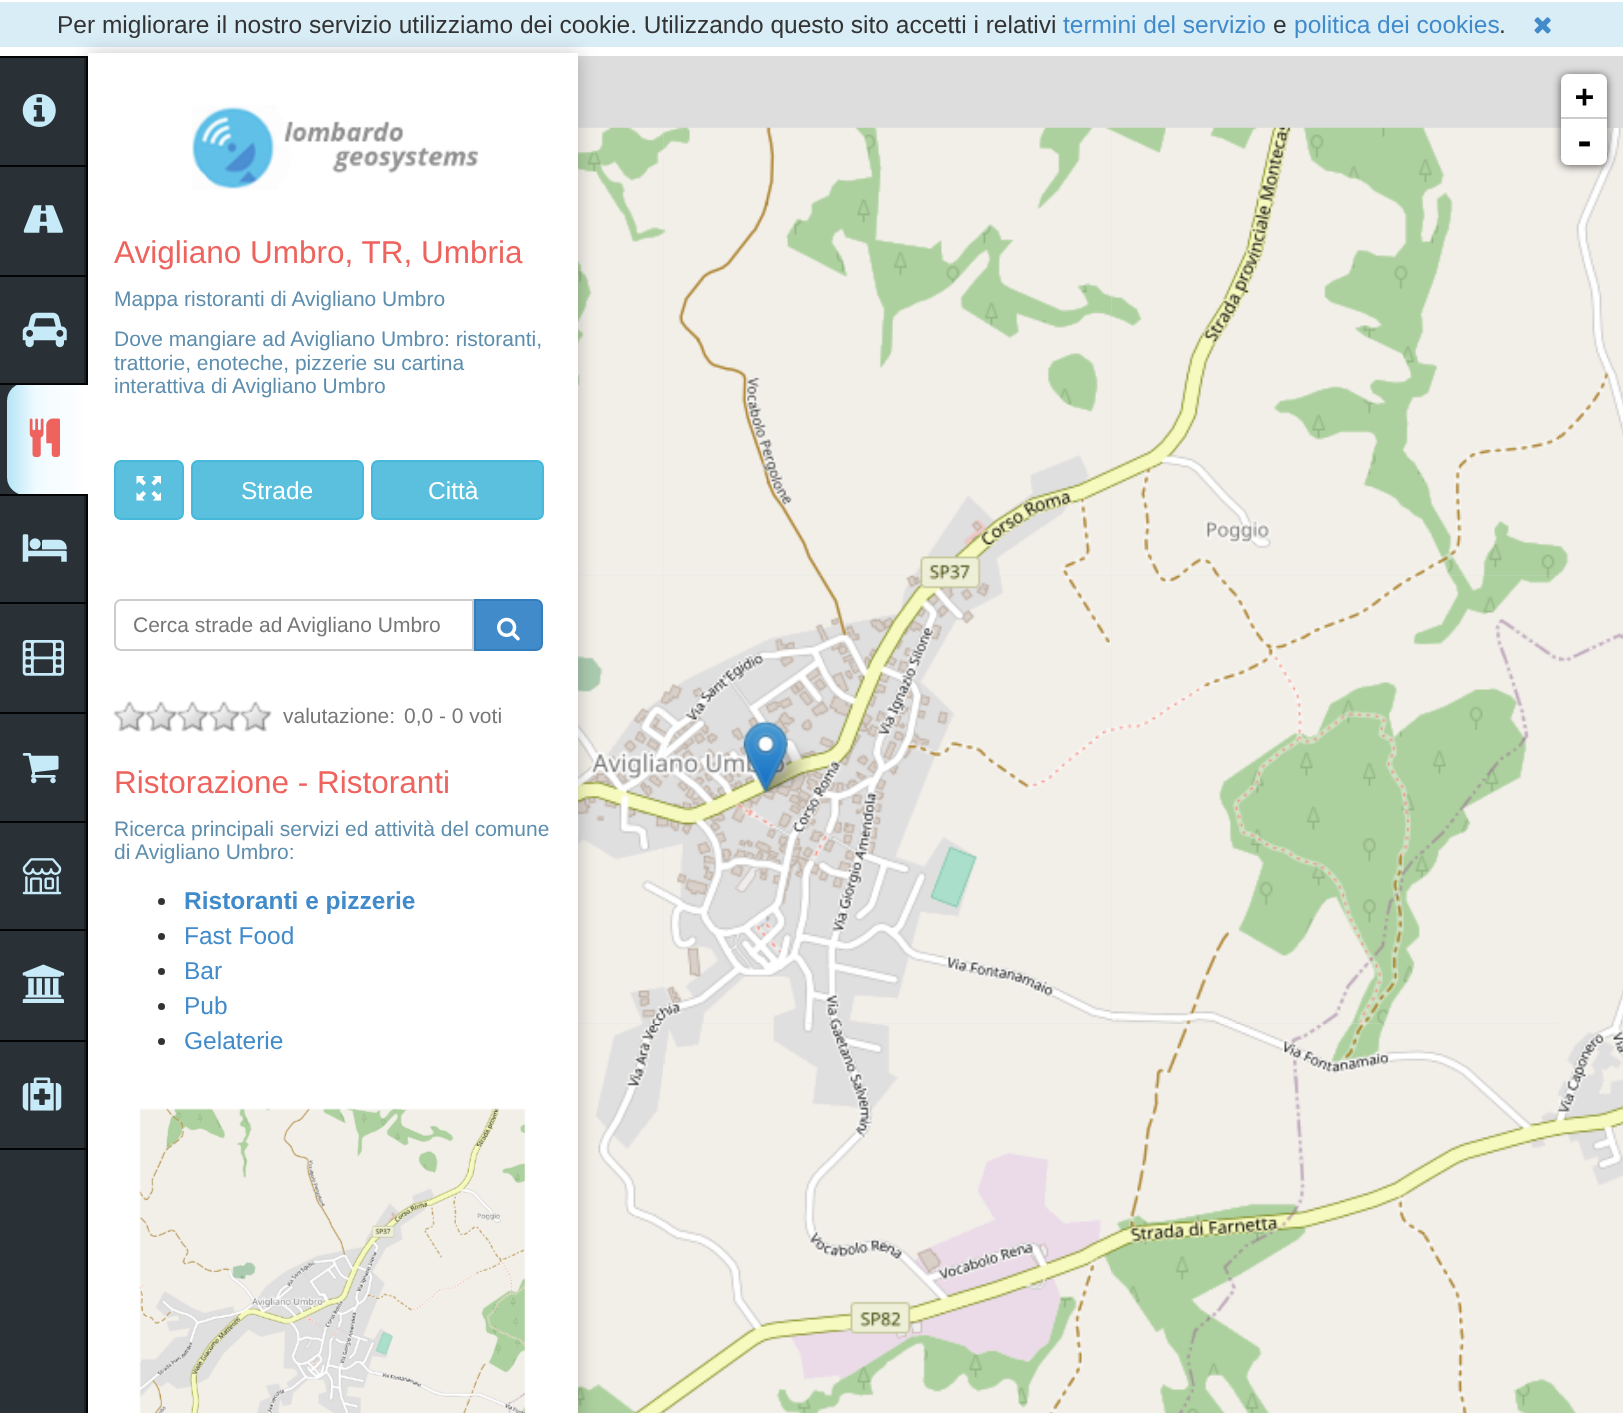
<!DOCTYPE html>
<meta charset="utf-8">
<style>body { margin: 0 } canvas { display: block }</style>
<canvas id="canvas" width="1623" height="1413"></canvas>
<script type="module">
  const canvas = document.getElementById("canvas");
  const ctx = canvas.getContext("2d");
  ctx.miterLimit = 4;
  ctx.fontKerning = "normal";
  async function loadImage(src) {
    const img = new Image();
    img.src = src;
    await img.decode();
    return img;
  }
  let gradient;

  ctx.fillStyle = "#ffffff";
  ctx.fillRect(0, 0, 1623, 1413);
  ctx.fillStyle = "#d9edf7";
  ctx.fillRect(0, 2, 1623, 45);
  ctx.font = "24.5px Liberation Sans";
  ctx.fillStyle = "#333333";
  ctx.fillText("Per migliorare il nostro servizio utilizziamo dei cookie. Utilizzando questo sito accetti i relativi", 57, 33);
  ctx.fillStyle = "#428bca";
  ctx.fillText("termini del servizio", 1063, 33);
  ctx.fillStyle = "#333333";
  ctx.fillText("e", 1273, 33);
  ctx.fillStyle = "#428bca";
  ctx.fillText("politica dei cookies", 1294, 33);
  ctx.fillStyle = "#333333";
  ctx.fillText(".", 1499, 33);
  ctx.drawImage(await loadImage("img1.png"), 1534, 17, 17, 17);
  ctx.fillStyle = "#dddddd";
  ctx.fillRect(578, 56, 1045, 968);
  ctx.drawImage(await loadImage("img3.png"), 663, 127, 449, 449);
  ctx.drawImage(await loadImage("img7.png"), 663, 575, 449, 449);
  ctx.drawImage(await loadImage("img4.png"), 1111, 127, 449, 449);
  ctx.drawImage(await loadImage("img5.png"), 1559, 128, 64, 448);
  ctx.fillStyle = "rgba(0, 0, 0, 0.65)";
  ctx.filter = "blur(4.5px)";
  ctx.beginPath();
  ctx.roundRect(1561, 75, 46, 91, 7);
  ctx.fill();
  ctx.filter = "none";
  ctx.fillStyle = "#ffffff";
  ctx.beginPath();
  ctx.roundRect(1561, 74, 46, 45, [7, 7, 0, 0]);
  ctx.fill();
  ctx.fillStyle = "#cccccc";
  ctx.fillRect(1561, 117, 46, 2);
  ctx.font = "bold 31.5px DejaVu Sans Mono";
  ctx.fillStyle = "#000000";
  ctx.fillText("+", 1575, 107);
  ctx.fillStyle = "#ffffff";
  ctx.beginPath();
  ctx.roundRect(1561, 119, 46, 46, [0, 0, 7, 7]);
  ctx.fill();
  ctx.font = "bold 35px DejaVu Sans Mono";
  ctx.fillStyle = "#000000";
  ctx.fillText("-", 1574, 154);
  ctx.drawImage(await loadImage("img2.png"), 578, 127, 86, 449);
  ctx.drawImage(await loadImage("img6.png"), 578, 575, 86, 449);
  ctx.drawImage(await loadImage("img8.png"), 1111, 575, 448, 449);
  ctx.drawImage(await loadImage("img9.png"), 1559, 576, 64, 448);
  ctx.drawImage(await loadImage("img10.png"), 578, 1024, 85, 389);
  ctx.drawImage(await loadImage("img11.png"), 663, 1024, 448, 389);
  ctx.drawImage(await loadImage("img12.png"), 1111, 1024, 448, 389);
  ctx.drawImage(await loadImage("img13.png"), 1559, 1024, 64, 389);
  ctx.drawImage(await loadImage("img15.png"), 759, 743, 52, 50);
  ctx.drawImage(await loadImage("img14.png"), 743, 721, 45, 72);
  ctx.fillStyle = "rgba(0, 0, 0, 0.22)";
  ctx.filter = "blur(9px)";
  ctx.beginPath();
  ctx.rect(89, 53, 490, 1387);
  ctx.fill();
  ctx.filter = "none";
  ctx.fillStyle = "#293137";
  ctx.fillRect(0, 58, 84, 1355);
  ctx.fillStyle = "#1c2125";
  ctx.fillRect(84, 56, 2, 1357);
  ctx.fillStyle = "#030405";
  ctx.fillRect(86, 56, 2, 1357);
  ctx.fillRect(0, 56, 86, 2);
  ctx.fillRect(0, 165, 86, 2);
  ctx.drawImage(await loadImage("img16.png"), 22, 94, 34, 33);
  ctx.fillRect(0, 275, 86, 2);
  ctx.drawImage(await loadImage("img17.png"), 23, 205, 40, 28);
  ctx.fillRect(0, 383, 16, 2);
  ctx.drawImage(await loadImage("img18.png"), 22, 312, 45, 36);
  gradient = ctx.createLinearGradient(7, 439, 88, 439);
  gradient.addColorStop(0, "#b5e5f6");
  gradient.addColorStop(0.36, "#f0fbff");
  gradient.addColorStop(1, "#ffffff");
  ctx.fillStyle = gradient;
  ctx.beginPath();
  ctx.roundRect(7, 383, 81, 112, [18, 0, 0, 18]);
  ctx.fill();
  ctx.fillStyle = "#030405";
  ctx.fillRect(16, 383, 72, 2);
  ctx.fillRect(86, 494, 2, 1);
  ctx.drawImage(await loadImage("img19.png"), 29, 418, 31, 39);
  ctx.fillRect(0, 494, 86, 2);
  ctx.fillRect(0, 602, 86, 2);
  ctx.drawImage(await loadImage("img20.png"), 22, 534, 45, 28);
  ctx.fillRect(0, 712, 86, 2);
  ctx.drawImage(await loadImage("img21.png"), 22, 640, 42, 36);
  ctx.fillRect(0, 821, 86, 2);
  ctx.drawImage(await loadImage("img22.png"), 22, 753, 37, 31);
  ctx.fillRect(0, 929, 86, 2);
  ctx.drawImage(await loadImage("img23.png"), 22, 858, 40, 37);
  ctx.fillRect(0, 1040, 86, 2);
  ctx.drawImage(await loadImage("img24.png"), 22, 964, 42, 39);
  ctx.fillRect(0, 1148, 86, 2);
  ctx.drawImage(await loadImage("img25.png"), 22, 1077, 40, 34);
  ctx.fillStyle = "#ffffff";
  ctx.fillRect(88, 53, 490, 1360);
  ctx.drawImage(await loadImage("img26.png"), 192, 105, 287, 85);
  ctx.font = "31.5px Liberation Sans";
  ctx.fillStyle = "#ee635d";
  ctx.fillText("Avigliano Umbro, TR, Umbria", 114, 263);
  ctx.font = "21px Liberation Sans";
  ctx.fillStyle = "#5d8eae";
  ctx.fillText("Mappa ristoranti di Avigliano Umbro", 114, 306);
  ctx.fillText("Dove mangiare ad Avigliano Umbro: ristoranti,", 114, 346);
  ctx.fillText("trattorie, enoteche, pizzerie su cartina", 114, 370);
  ctx.fillText("interattiva di Avigliano Umbro", 114, 393);
  ctx.fillStyle = "#5bc0de";
  ctx.beginPath();
  ctx.roundRect(115, 461, 68, 58, 6);
  ctx.fill();
  ctx.strokeStyle = "#46b8da";
  ctx.lineWidth = 2;
  ctx.stroke();
  ctx.drawImage(await loadImage("img27.png"), 136, 476, 25, 25);
  ctx.beginPath();
  ctx.roundRect(192, 461, 171, 58, 6);
  ctx.fill();
  ctx.stroke();
  ctx.font = "24.5px Liberation Sans";
  ctx.fillStyle = "#ffffff";
  ctx.fillText("Strade", 241, 499);
  ctx.fillStyle = "#5bc0de";
  ctx.beginPath();
  ctx.roundRect(372, 461, 171, 58, 6);
  ctx.fill();
  ctx.stroke();
  ctx.fillStyle = "#ffffff";
  ctx.fillText("Città", 428, 499);
  ctx.beginPath();
  ctx.roundRect(115, 600, 358, 50, [6, 0, 0, 6]);
  ctx.strokeStyle = "#cccccc";
  ctx.stroke();
  ctx.font = "21px Liberation Sans";
  ctx.fillStyle = "#777777";
  ctx.fillText("Cerca strade ad Avigliano Umbro", 133, 632);
  ctx.fillStyle = "#428bca";
  ctx.beginPath();
  ctx.roundRect(475, 600, 67, 50, [0, 6, 6, 0]);
  ctx.fill();
  ctx.strokeStyle = "#357ebd";
  ctx.stroke();
  ctx.drawImage(await loadImage("img28.png"), 497, 617, 23, 24);
  ctx.drawImage(await loadImage("img29.png"), 113, 701, 159, 31);
  ctx.fillStyle = "#777777";
  ctx.fillText("valutazione:", 283, 723);
  ctx.fillText("0,0 - 0 voti", 404, 723);
  ctx.font = "31.5px Liberation Sans";
  ctx.fillStyle = "#ee635d";
  ctx.fillText("Ristorazione - Ristoranti", 114, 793);
  ctx.font = "21px Liberation Sans";
  ctx.fillStyle = "#5d8eae";
  ctx.fillText("Ricerca principali servizi ed attività del comune", 114, 836);
  ctx.fillText("di Avigliano Umbro:", 114, 859);
  ctx.fillStyle = "#333333";
  ctx.beginPath();
  ctx.arc(161.5, 901.5, 3.5, 0, Math.PI * 2);
  ctx.fill();
  ctx.font = "bold 24.5px Liberation Sans";
  ctx.fillStyle = "#428bca";
  ctx.fillText("Ristoranti e pizzerie", 184, 909);
  ctx.fillStyle = "#333333";
  ctx.beginPath();
  ctx.arc(161.5, 936.5, 3.5, 0, Math.PI * 2);
  ctx.fill();
  ctx.font = "24.5px Liberation Sans";
  ctx.fillStyle = "#428bca";
  ctx.fillText("Fast Food", 184, 944);
  ctx.fillStyle = "#333333";
  ctx.beginPath();
  ctx.arc(161.5, 971.5, 3.5, 0, Math.PI * 2);
  ctx.fill();
  ctx.fillStyle = "#428bca";
  ctx.fillText("Bar", 184, 979);
  ctx.fillStyle = "#333333";
  ctx.beginPath();
  ctx.arc(161.5, 1006.5, 3.5, 0, Math.PI * 2);
  ctx.fill();
  ctx.fillStyle = "#428bca";
  ctx.fillText("Pub", 184, 1014);
  ctx.fillStyle = "#333333";
  ctx.beginPath();
  ctx.arc(161.5, 1041.5, 3.5, 0, Math.PI * 2);
  ctx.fill();
  ctx.fillStyle = "#428bca";
  ctx.fillText("Gelaterie", 184, 1049);
  ctx.drawImage(await loadImage("img30.png"), 139, 1108, 387, 305);
</script>
